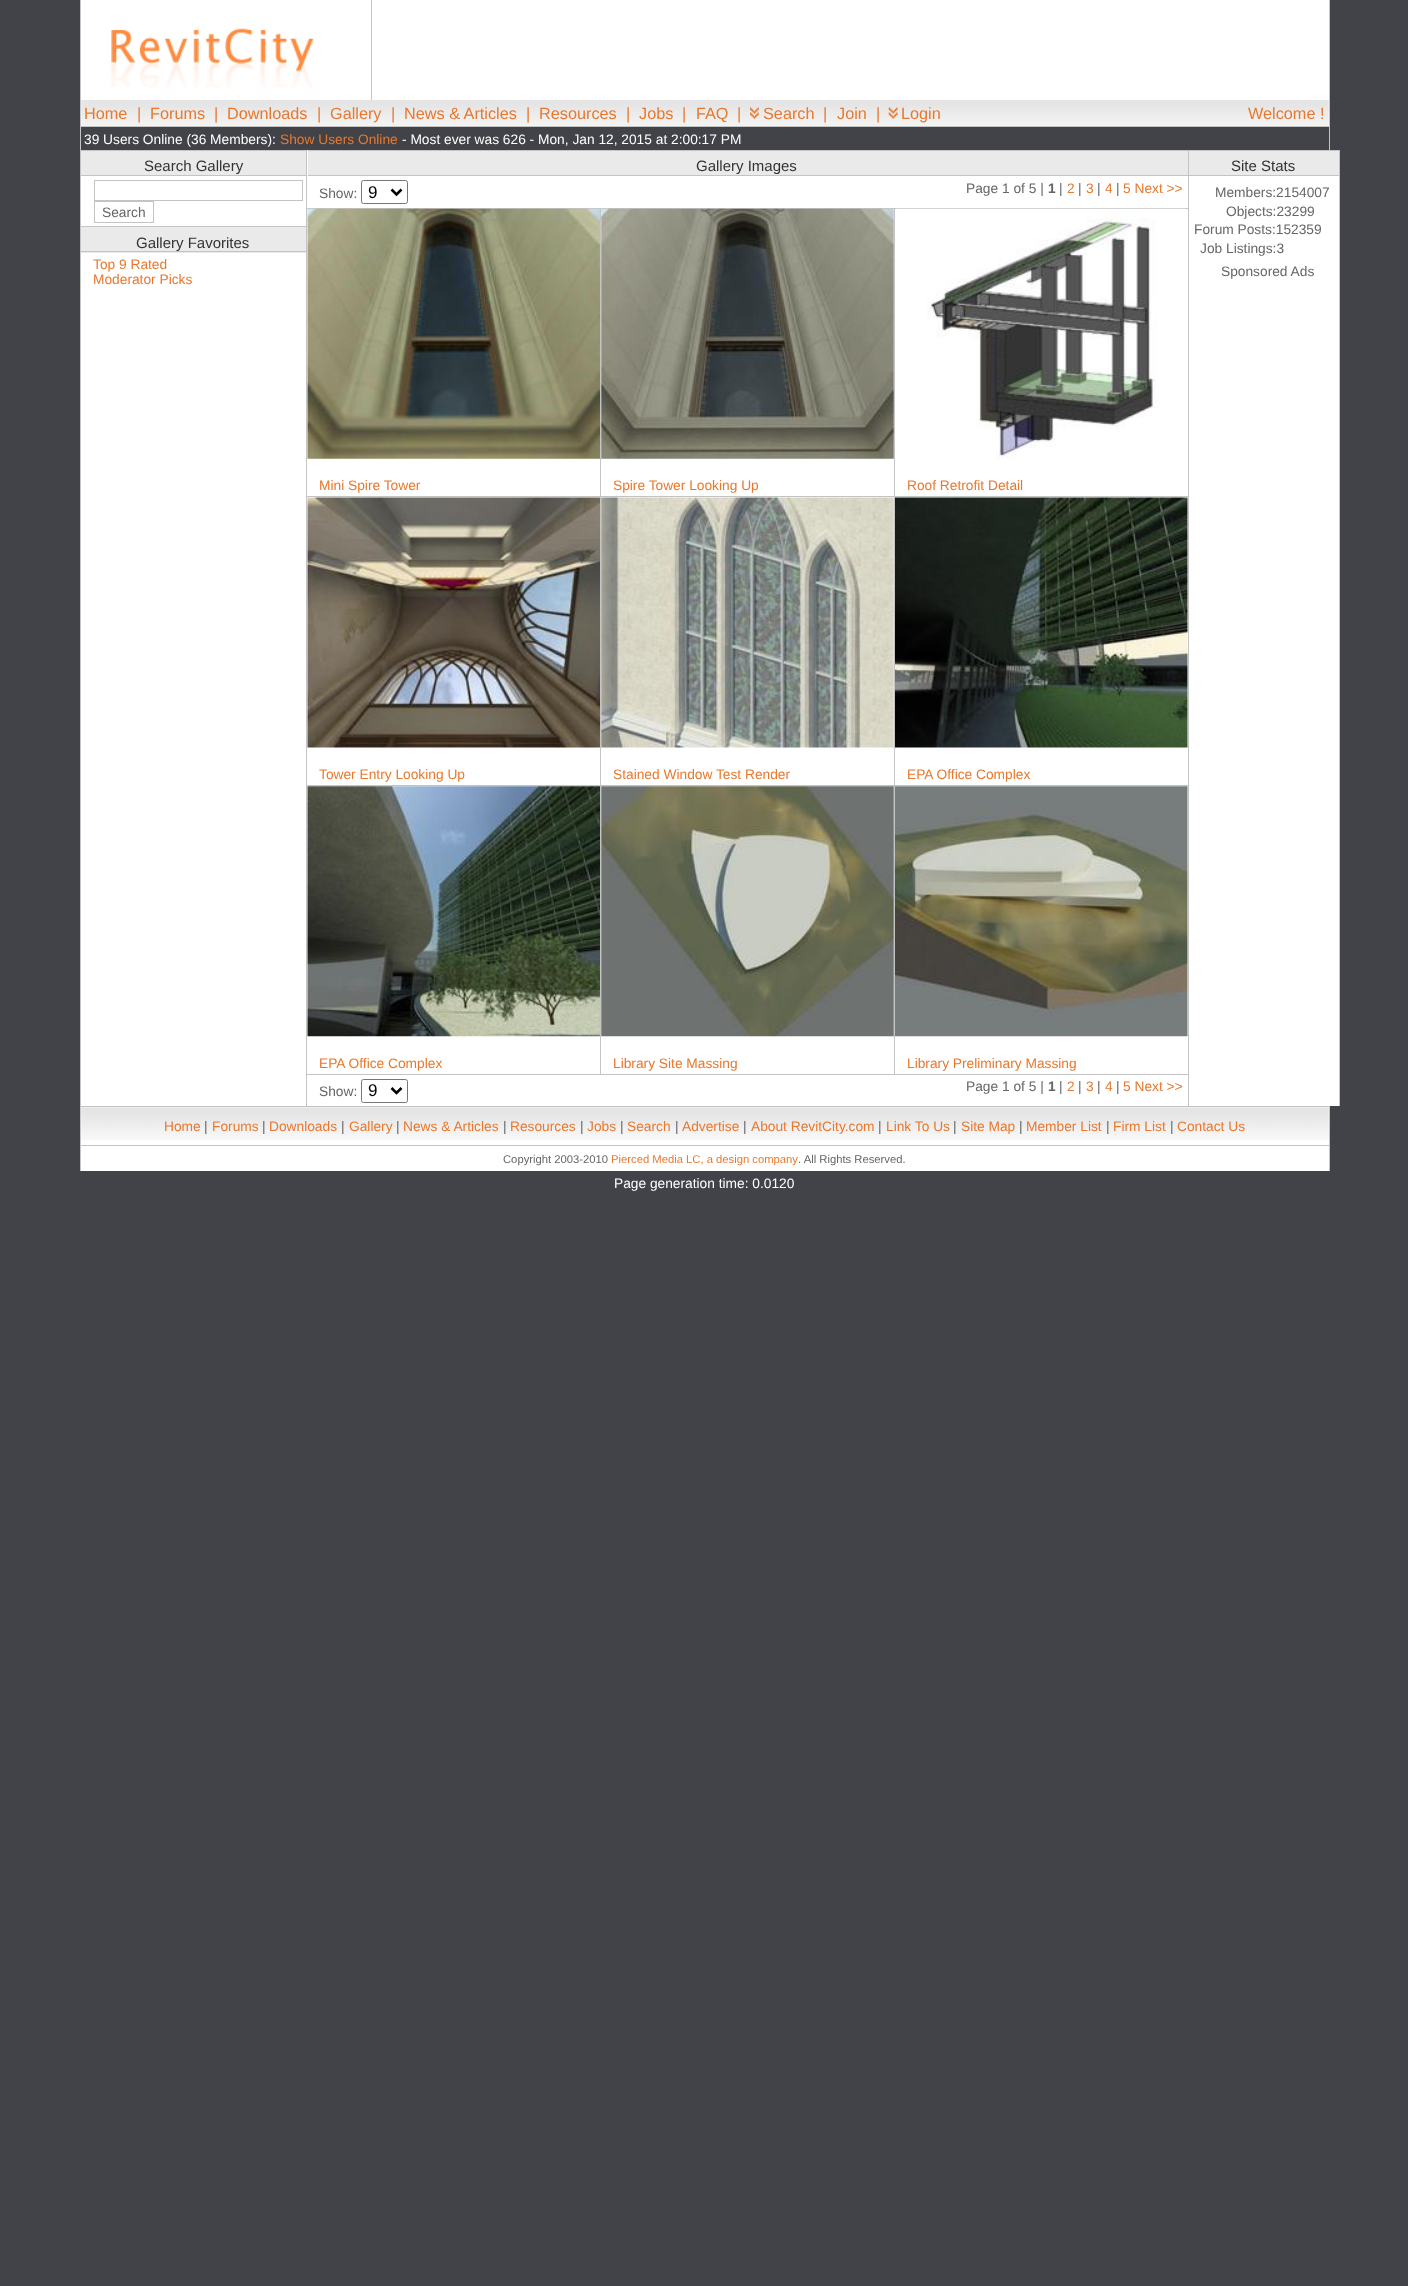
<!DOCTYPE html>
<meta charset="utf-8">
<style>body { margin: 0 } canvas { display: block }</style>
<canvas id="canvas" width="1408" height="2286"></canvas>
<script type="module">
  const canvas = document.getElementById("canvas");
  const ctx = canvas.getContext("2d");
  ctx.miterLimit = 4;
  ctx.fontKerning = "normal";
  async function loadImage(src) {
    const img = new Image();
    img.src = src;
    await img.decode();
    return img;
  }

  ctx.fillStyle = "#424249";
  ctx.fillRect(0, 0, 1408, 2286);
  ctx.fillStyle = "#ffffff";
  ctx.fillRect(81, 0, 1248, 126);
  ctx.fillStyle = "#c4c4c4";
  ctx.fillRect(1329, 0, 1, 150);
  ctx.fillRect(80, 0, 1, 1171);
  ctx.drawImage(await loadImage("img1.png"), 110, 28, 204, 60);
  ctx.fillRect(371, 0, 1, 100);
  ctx.drawImage(await loadImage("img2.png"), 81, 100, 1248, 26);
  ctx.font = "16.25px Liberation Sans";
  ctx.fillStyle = "#e8782d";
  ctx.fillText("Home", 84, 119);
  ctx.fillText("|", 137, 119);
  ctx.fillText("Forums", 150, 119);
  ctx.fillText("|", 214, 119);
  ctx.fillText("Downloads", 227, 119);
  ctx.fillText("|", 317, 119);
  ctx.fillText("Gallery", 330, 119);
  ctx.fillText("|", 391, 119);
  ctx.fillText("News & Articles", 404, 119);
  ctx.fillText("|", 526, 119);
  ctx.fillText("Resources", 539, 119);
  ctx.fillText("|", 626, 119);
  ctx.fillText("Jobs", 639, 119);
  ctx.fillText("|", 682, 119);
  ctx.fillText("FAQ", 696, 119);
  ctx.fillText("|", 737, 119);
  ctx.drawImage(await loadImage("img3.png"), 750, 107, 9, 12);
  ctx.fillText("Search", 763, 119);
  ctx.fillText("|", 823, 119);
  ctx.fillText("Join", 837, 119);
  ctx.fillText("|", 876, 119);
  ctx.drawImage(await loadImage("img4.png"), 888, 107, 10, 12);
  ctx.fillText("Login", 901, 119);
  ctx.fillText("Welcome !", 1248, 119);
  ctx.fillStyle = "#c4c4c4";
  ctx.fillRect(81, 126, 1248, 1);
  ctx.font = "13.75px Liberation Sans";
  ctx.fillStyle = "#ffffff";
  ctx.fillText("39 Users Online (36 Members):", 84, 144);
  ctx.fillStyle = "#e8782d";
  ctx.fillText("Show Users Online", 280, 144);
  ctx.fillStyle = "#ffffff";
  ctx.fillText("- Most ever was 626 - Mon, Jan 12, 2015 at 2:00:17 PM", 402, 144);
  ctx.fillRect(81, 150, 1258, 956);
  ctx.fillStyle = "#c4c4c4";
  ctx.fillRect(1339, 150, 1, 956);
  ctx.fillRect(306, 150, 1, 956);
  ctx.fillStyle = "#eaeaea";
  ctx.fillRect(81, 151, 225, 24);
  ctx.fillStyle = "#c4c4c4";
  ctx.fillRect(81, 150, 225, 1);
  ctx.fillRect(81, 175, 225, 1);
  ctx.font = "15px Liberation Sans";
  ctx.fillStyle = "#333333";
  ctx.fillText("Search Gallery", 144, 171);
  ctx.strokeStyle = "#c4c4c4";
  ctx.strokeRect(94.5, 180.5, 208, 20);
  ctx.strokeRect(94.5, 201.5, 59, 21);
  ctx.font = "13.75px Liberation Sans";
  ctx.fillStyle = "#666666";
  ctx.fillText("Search", 102, 217);
  ctx.fillStyle = "#eaeaea";
  ctx.fillRect(81, 227, 225, 26);
  ctx.fillStyle = "#c4c4c4";
  ctx.fillRect(81, 226, 225, 1);
  ctx.fillRect(81, 251, 225, 1);
  ctx.font = "15px Liberation Sans";
  ctx.fillStyle = "#333333";
  ctx.fillText("Gallery Favorites", 136, 248);
  ctx.font = "13.75px Liberation Sans";
  ctx.fillStyle = "#e8782d";
  ctx.fillText("Top 9 Rated", 93, 269);
  ctx.fillText("Moderator Picks", 93, 284);
  ctx.fillStyle = "#eaeaea";
  ctx.fillRect(308, 151, 880, 24);
  ctx.fillStyle = "#c4c4c4";
  ctx.fillRect(308, 150, 880, 1);
  ctx.fillRect(308, 175, 880, 1);
  ctx.font = "15px Liberation Sans";
  ctx.fillStyle = "#333333";
  ctx.fillText("Gallery Images", 696, 171);
  ctx.font = "13.75px Liberation Sans";
  ctx.fillStyle = "#666666";
  ctx.fillText("Show:", 319, 198);
  ctx.beginPath();
  ctx.roundRect(361.5, 180.5, 46, 23, 2);
  ctx.strokeStyle = "#767676";
  ctx.stroke();
  ctx.beginPath();
  ctx.moveTo(391.5, 189.5);
  ctx.lineTo(396.5, 194.5);
  ctx.lineTo(401.5, 189.5);
  ctx.strokeStyle = "#000000";
  ctx.lineWidth = 2.5;
  ctx.stroke();
  ctx.font = "17px Liberation Sans";
  ctx.fillStyle = "#000000";
  ctx.fillText("9", 368, 198);
  ctx.font = "13.75px Liberation Sans";
  ctx.fillStyle = "#666666";
  ctx.fillText("Page 1 of 5 |", 966, 193);
  ctx.font = "bold 13.75px Liberation Sans";
  ctx.fillText("1", 1048, 193);
  ctx.font = "13.75px Liberation Sans";
  ctx.fillText("|", 1059, 193);
  ctx.fillStyle = "#e8782d";
  ctx.fillText("2", 1067, 193);
  ctx.fillStyle = "#666666";
  ctx.fillText("|", 1078, 193);
  ctx.fillStyle = "#e8782d";
  ctx.fillText("3", 1086, 193);
  ctx.fillStyle = "#666666";
  ctx.fillText("|", 1097, 193);
  ctx.fillStyle = "#e8782d";
  ctx.fillText("4", 1105, 193);
  ctx.fillStyle = "#666666";
  ctx.fillText("|", 1116, 193);
  ctx.fillStyle = "#e8782d";
  ctx.fillText("5 Next >>", 1123, 193);
  ctx.fillStyle = "#c4c4c4";
  ctx.fillRect(600, 208, 588, 1);
  ctx.fillRect(600, 496, 588, 1);
  ctx.fillRect(600, 785, 588, 1);
  ctx.fillRect(894, 1074, 294, 1);
  ctx.fillRect(894, 785, 1, 290);
  ctx.fillRect(600, 1074, 295, 1);
  ctx.fillRect(600, 785, 1, 290);
  ctx.fillRect(306, 785, 295, 1);
  ctx.fillRect(600, 496, 1, 290);
  ctx.fillRect(306, 496, 295, 1);
  ctx.fillRect(600, 208, 1, 290);
  ctx.fillRect(306, 208, 295, 1);
  ctx.drawImage(await loadImage("img5.png"), 307, 208, 293, 251);
  ctx.fillStyle = "#e8782d";
  ctx.fillText("Mini Spire Tower", 319, 490);
  ctx.fillStyle = "#c4c4c4";
  ctx.fillRect(894, 496, 1, 290);
  ctx.fillRect(894, 208, 1, 290);
  ctx.drawImage(await loadImage("img6.png"), 601, 208, 293, 251);
  ctx.fillStyle = "#e8782d";
  ctx.fillText("Spire Tower Looking Up", 613, 490);
  ctx.drawImage(await loadImage("img7.png"), 896, 208, 290, 251);
  ctx.fillText("Roof Retrofit Detail", 907, 490);
  ctx.drawImage(await loadImage("img8.png"), 307, 497, 293, 251);
  ctx.fillText("Tower Entry Looking Up", 319, 779);
  ctx.drawImage(await loadImage("img9.png"), 601, 497, 293, 251);
  ctx.fillText("Stained Window Test Render", 613, 779);
  ctx.drawImage(await loadImage("img10.png"), 895, 497, 293, 251);
  ctx.fillText("EPA Office Complex", 907, 779);
  ctx.fillStyle = "#c4c4c4";
  ctx.fillRect(306, 1074, 295, 1);
  ctx.drawImage(await loadImage("img11.png"), 307, 786, 293, 251);
  ctx.fillStyle = "#e8782d";
  ctx.fillText("EPA Office Complex", 319, 1068);
  ctx.drawImage(await loadImage("img12.png"), 601, 786, 293, 251);
  ctx.fillText("Library Site Massing", 613, 1068);
  ctx.drawImage(await loadImage("img13.png"), 895, 786, 293, 251);
  ctx.fillText("Library Preliminary Massing", 907, 1068);
  ctx.fillStyle = "#666666";
  ctx.fillText("Show:", 319, 1096);
  ctx.beginPath();
  ctx.roundRect(361.5, 1079.5, 46, 23, 2);
  ctx.strokeStyle = "#767676";
  ctx.lineWidth = 1;
  ctx.stroke();
  ctx.beginPath();
  ctx.moveTo(391.5, 1088);
  ctx.lineTo(396.5, 1093);
  ctx.lineTo(401.5, 1088);
  ctx.strokeStyle = "#000000";
  ctx.lineWidth = 2.5;
  ctx.stroke();
  ctx.font = "17px Liberation Sans";
  ctx.fillStyle = "#000000";
  ctx.fillText("9", 368, 1096);
  ctx.font = "13.75px Liberation Sans";
  ctx.fillStyle = "#666666";
  ctx.fillText("Page 1 of 5 |", 966, 1091);
  ctx.font = "bold 13.75px Liberation Sans";
  ctx.fillText("1", 1048, 1091);
  ctx.font = "13.75px Liberation Sans";
  ctx.fillText("|", 1059, 1091);
  ctx.fillStyle = "#e8782d";
  ctx.fillText("2", 1067, 1091);
  ctx.fillStyle = "#666666";
  ctx.fillText("|", 1078, 1091);
  ctx.fillStyle = "#e8782d";
  ctx.fillText("3", 1086, 1091);
  ctx.fillStyle = "#666666";
  ctx.fillText("|", 1097, 1091);
  ctx.fillStyle = "#e8782d";
  ctx.fillText("4", 1105, 1091);
  ctx.fillStyle = "#666666";
  ctx.fillText("|", 1116, 1091);
  ctx.fillStyle = "#e8782d";
  ctx.fillText("5 Next >>", 1123, 1091);
  ctx.fillStyle = "#c4c4c4";
  ctx.fillRect(1188, 150, 1, 956);
  ctx.fillStyle = "#eaeaea";
  ctx.fillRect(1189, 151, 150, 24);
  ctx.fillStyle = "#c4c4c4";
  ctx.fillRect(1189, 150, 150, 1);
  ctx.fillRect(1189, 175, 150, 1);
  ctx.font = "15px Liberation Sans";
  ctx.fillStyle = "#333333";
  ctx.fillText("Site Stats", 1231, 171);
  ctx.font = "13.75px Liberation Sans";
  ctx.fillStyle = "#666666";
  ctx.fillText("Members:2154007", 1215, 197);
  ctx.fillText("Objects:23299", 1226, 216);
  ctx.fillText("Forum Posts:152359", 1194, 234);
  ctx.fillText("Job Listings:3", 1200, 253);
  ctx.fillText("Sponsored Ads", 1221, 276);
  ctx.fillStyle = "#ffffff";
  ctx.fillRect(81, 1107, 1248, 64);
  ctx.fillStyle = "#c4c4c4";
  ctx.fillRect(1329, 1106, 1, 65);
  ctx.drawImage(await loadImage("img14.png"), 81, 1107, 1248, 38);
  ctx.fillRect(81, 1106, 1248, 1);
  ctx.fillRect(81, 1145, 1248, 1);
  ctx.fillStyle = "#e8782d";
  ctx.fillText("Home", 164, 1131);
  ctx.fillStyle = "#666666";
  ctx.fillText("|", 204, 1131);
  ctx.fillStyle = "#e8782d";
  ctx.fillText("Forums", 212, 1131);
  ctx.fillStyle = "#666666";
  ctx.fillText("|", 262, 1131);
  ctx.fillStyle = "#e8782d";
  ctx.fillText("Downloads", 269, 1131);
  ctx.fillStyle = "#666666";
  ctx.fillText("|", 341, 1131);
  ctx.fillStyle = "#e8782d";
  ctx.fillText("Gallery", 349, 1131);
  ctx.fillStyle = "#666666";
  ctx.fillText("|", 396, 1131);
  ctx.fillStyle = "#e8782d";
  ctx.fillText("News & Articles", 403, 1131);
  ctx.fillStyle = "#666666";
  ctx.fillText("|", 503, 1131);
  ctx.fillStyle = "#e8782d";
  ctx.fillText("Resources", 510, 1131);
  ctx.fillStyle = "#666666";
  ctx.fillText("|", 580, 1131);
  ctx.fillStyle = "#e8782d";
  ctx.fillText("Jobs", 587, 1131);
  ctx.fillStyle = "#666666";
  ctx.fillText("|", 620, 1131);
  ctx.fillStyle = "#e8782d";
  ctx.fillText("Search", 627, 1131);
  ctx.fillStyle = "#666666";
  ctx.fillText("|", 675, 1131);
  ctx.fillStyle = "#e8782d";
  ctx.fillText("Advertise", 682, 1131);
  ctx.fillStyle = "#666666";
  ctx.fillText("|", 743, 1131);
  ctx.fillStyle = "#e8782d";
  ctx.fillText("About RevitCity.com", 751, 1131);
  ctx.fillStyle = "#666666";
  ctx.fillText("|", 878, 1131);
  ctx.fillStyle = "#e8782d";
  ctx.fillText("Link To Us", 886, 1131);
  ctx.fillStyle = "#666666";
  ctx.fillText("|", 953, 1131);
  ctx.fillStyle = "#e8782d";
  ctx.fillText("Site Map", 961, 1131);
  ctx.fillStyle = "#666666";
  ctx.fillText("|", 1019, 1131);
  ctx.fillStyle = "#e8782d";
  ctx.fillText("Member List", 1026, 1131);
  ctx.fillStyle = "#666666";
  ctx.fillText("|", 1106, 1131);
  ctx.fillStyle = "#e8782d";
  ctx.fillText("Firm List", 1113, 1131);
  ctx.fillStyle = "#666666";
  ctx.fillText("|", 1170, 1131);
  ctx.fillStyle = "#e8782d";
  ctx.fillText("Contact Us", 1177, 1131);
  ctx.font = "11.25px Liberation Sans";
  ctx.fillStyle = "#666666";
  ctx.fillText("Copyright 2003-2010", 503, 1163);
  ctx.fillStyle = "#e8782d";
  ctx.fillText("Pierced Media LC, a design company", 611, 1163);
  ctx.fillStyle = "#666666";
  ctx.fillText(". All Rights Reserved.", 798, 1163);
  ctx.font = "13.75px Liberation Sans";
  ctx.fillStyle = "#ffffff";
  ctx.fillText("Page generation time: 0.0120", 614, 1188);
</script>
